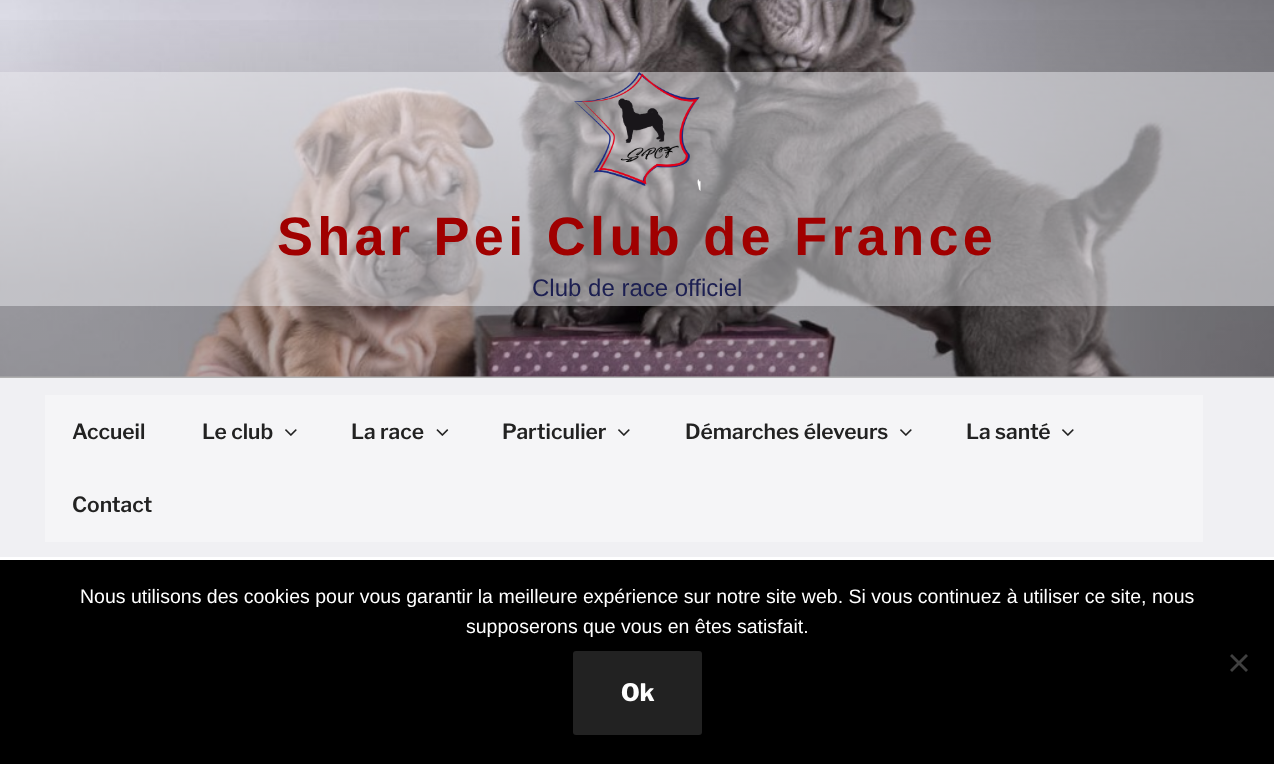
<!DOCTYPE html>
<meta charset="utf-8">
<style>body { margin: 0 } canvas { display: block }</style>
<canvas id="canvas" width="1274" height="764"></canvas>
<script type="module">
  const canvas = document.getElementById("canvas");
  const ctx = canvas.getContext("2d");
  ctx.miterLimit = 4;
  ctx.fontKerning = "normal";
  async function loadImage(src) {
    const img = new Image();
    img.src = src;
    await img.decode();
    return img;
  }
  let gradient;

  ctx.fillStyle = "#ffffff";
  ctx.fillRect(0, 0, 1274, 764);
  ctx.fillStyle = "#fafafa";
  ctx.fillRect(0, 376, 1274, 2);
  ctx.drawImage(await loadImage("img1.png"), 0, 0, 1274, 377);
  gradient = ctx.createLinearGradient(638, 0, 638, 378);
  gradient.addColorStop(0, "rgba(0, 0, 0, 0)");
  gradient.addColorStop(0.75, "rgba(0, 0, 0, 0.3)");
  gradient.addColorStop(1, "rgba(0, 0, 0, 0.3)");
  ctx.fillStyle = gradient;
  ctx.fillRect(0, 20, 1274, 358);
  ctx.fillStyle = "rgba(235, 235, 239, 0.5)";
  ctx.fillRect(0, 72, 1274, 234);
  ctx.drawImage(await loadImage("img2.png"), 574, 72, 127, 119);
  ctx.letterSpacing = "4.3px";
  ctx.font = "bold 54px Liberation Sans";
  ctx.fillStyle = "#a00000";
  ctx.fillText("Shar Pei Club de France", 277, 255);
  ctx.letterSpacing = "0px";
  ctx.font = "24px Liberation Sans";
  ctx.fillStyle = "#1c1f51";
  ctx.fillText("Club de race officiel", 532, 296);
  ctx.fillStyle = "#f0f0f3";
  ctx.fillRect(0, 378, 1274, 179);
  ctx.fillStyle = "#f5f5f7";
  ctx.fillRect(45, 395, 1158, 147);
  ctx.font = "100 21px Libre Franklin";
  ctx.fillStyle = "#222222";
  ctx.fillText("Accueil", 72, 439);
  ctx.fillText("Le club", 202, 439);
  ctx.drawImage(await loadImage("img3.png"), 285, 429, 12, 7);
  ctx.fillText("La race", 351, 439);
  ctx.drawImage(await loadImage("img4.png"), 436, 429, 13, 7);
  ctx.fillText("Particulier", 502, 439);
  ctx.drawImage(await loadImage("img3.png"), 618, 429, 12, 7);
  ctx.fillText("Démarches éleveurs", 685, 439);
  ctx.drawImage(await loadImage("img3.png"), 900, 429, 12, 7);
  ctx.fillText("La santé", 966, 439);
  ctx.drawImage(await loadImage("img3.png"), 1062, 429, 12, 7);
  ctx.fillText("Contact", 72, 512);
  ctx.fillStyle = "#000000";
  ctx.fillRect(0, 560, 1274, 204);
  ctx.font = "19.5px Liberation Sans";
  ctx.fillStyle = "#ffffff";
  ctx.fillText("Nous utilisons des cookies pour vous garantir la meilleure expérience sur notre site web. Si vous continuez à utiliser ce site, nous", 80, 603);
  ctx.fillText("supposerons que vous en êtes satisfait.", 466, 633);
  ctx.fillStyle = "#404040";
  ctx.beginPath();
  ctx.moveTo(1246, 654);
  ctx.lineTo(1248, 656);
  ctx.lineTo(1232, 672);
  ctx.lineTo(1230, 670);
  ctx.closePath();
  ctx.fill();
  ctx.beginPath();
  ctx.moveTo(1230, 656);
  ctx.lineTo(1232, 654);
  ctx.lineTo(1248, 670);
  ctx.lineTo(1246, 672);
  ctx.closePath();
  ctx.fill();
  ctx.fillStyle = "#222222";
  ctx.beginPath();
  ctx.roundRect(573, 651, 129, 84, 3);
  ctx.fill();
  ctx.font = "100 24px 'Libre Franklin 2'";
  ctx.fillStyle = "#ffffff";
  ctx.fillText("Ok", 621, 701);
</script>
